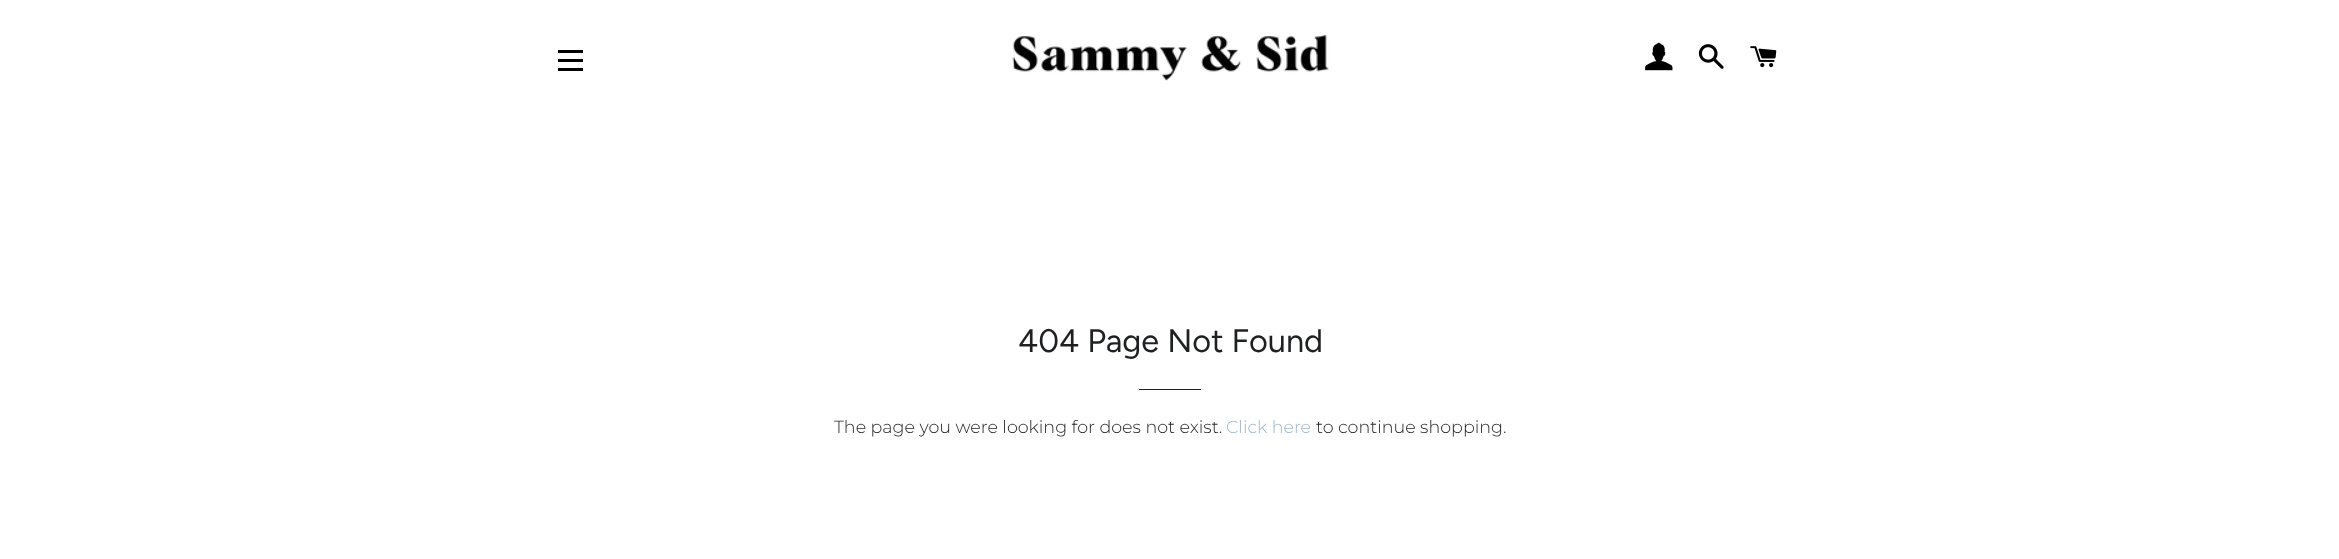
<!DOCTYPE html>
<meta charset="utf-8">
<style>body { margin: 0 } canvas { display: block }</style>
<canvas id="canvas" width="2339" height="559"></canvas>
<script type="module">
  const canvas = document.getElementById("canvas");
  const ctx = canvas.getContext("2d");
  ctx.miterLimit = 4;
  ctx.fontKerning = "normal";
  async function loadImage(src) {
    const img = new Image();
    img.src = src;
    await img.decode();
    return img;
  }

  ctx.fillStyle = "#ffffff";
  ctx.fillRect(0, 0, 2339, 559);
  ctx.fillStyle = "#000000";
  ctx.fillRect(558, 50, 25, 3);
  ctx.fillRect(558, 59, 25, 3);
  ctx.fillRect(558, 68, 25, 3);
  ctx.drawImage(await loadImage("img1.png"), 1012, 34, 317, 47);
  ctx.drawImage(await loadImage("img2.png"), 1645, 42, 28, 29);
  ctx.drawImage(await loadImage("img3.png"), 1698, 44, 26, 25);
  ctx.drawImage(await loadImage("img4.png"), 1750, 46, 27, 22);
  ctx.font = "32.5px Figtree";
  ctx.fillStyle = "#1f2021";
  ctx.fillText("404 Page Not Found", 1018, 352);
  ctx.fillRect(1139, 389, 62, 1);
  ctx.font = "300 17.5px Montserrat";
  ctx.fillText("The page you were looking for does not exist.", 834, 433);
  ctx.fillStyle = "#a2b7cc";
  ctx.fillText("Click here", 1226, 433);
  ctx.fillStyle = "#1f2021";
  ctx.fillText("to continue shopping.", 1316, 433);
</script>
